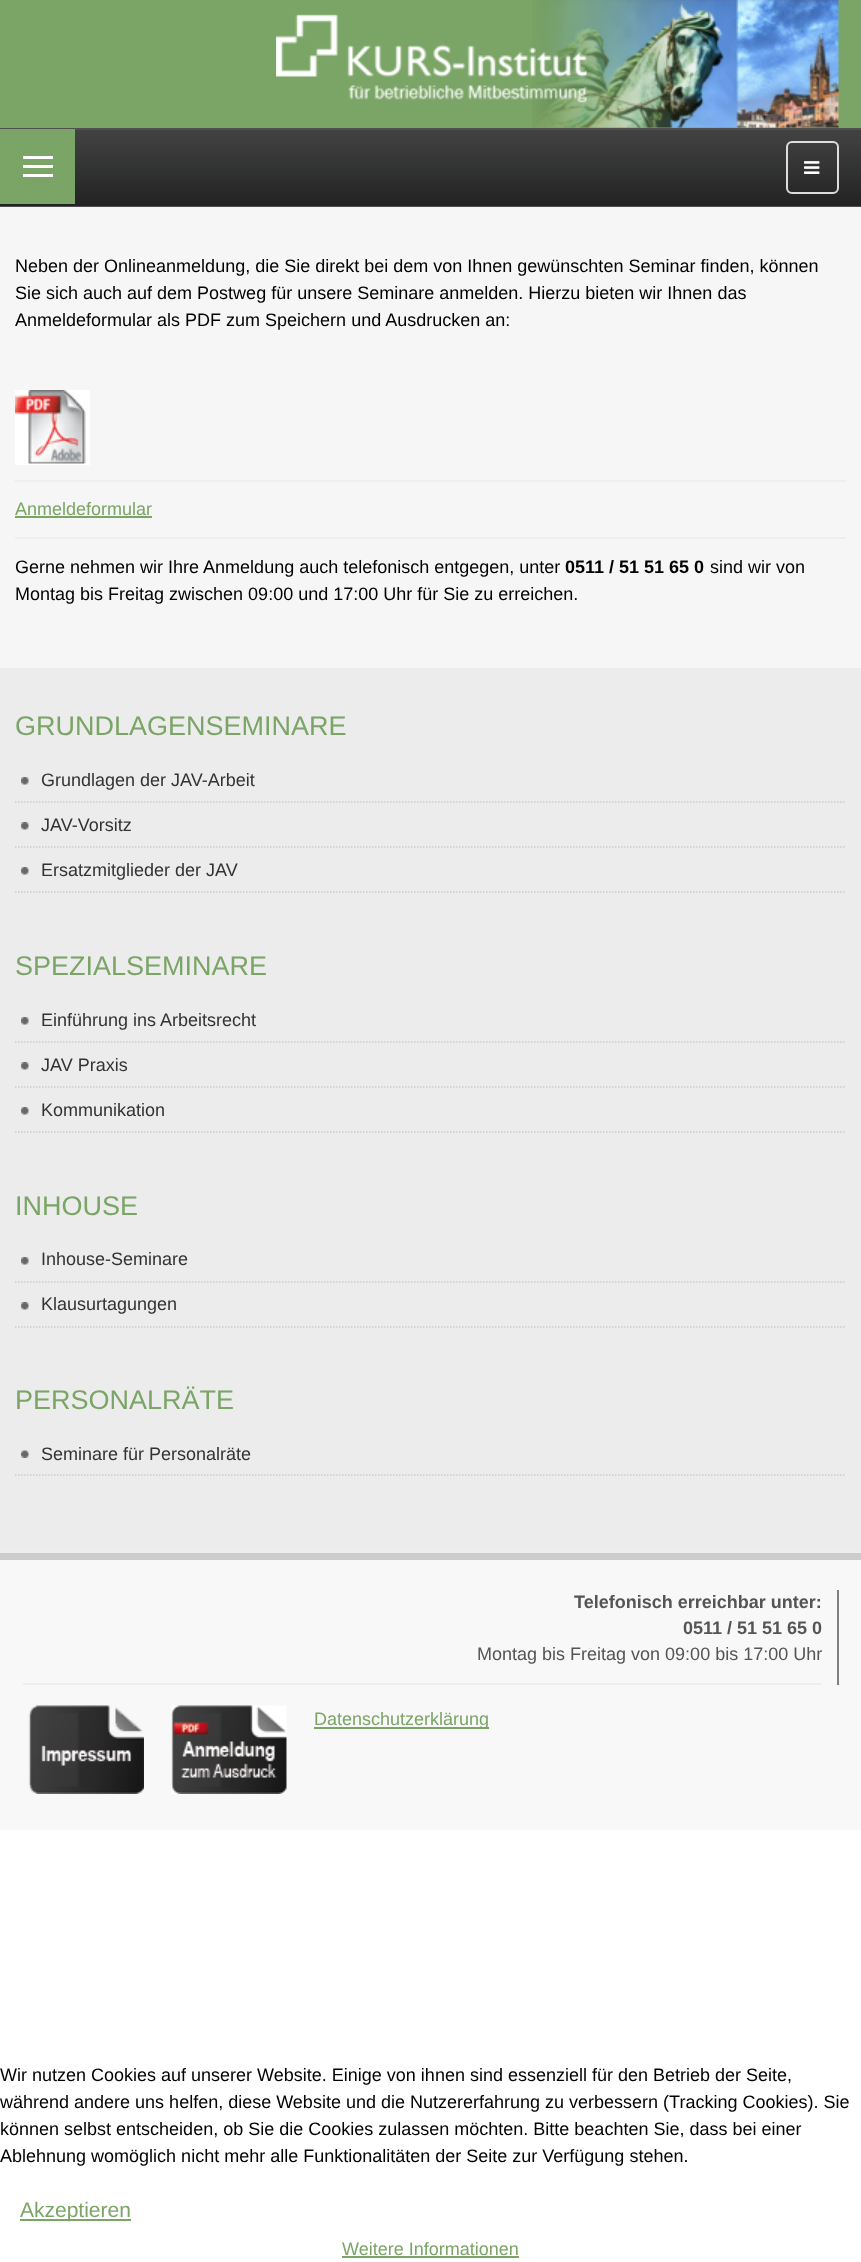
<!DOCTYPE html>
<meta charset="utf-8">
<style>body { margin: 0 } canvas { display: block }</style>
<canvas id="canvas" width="861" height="2262"></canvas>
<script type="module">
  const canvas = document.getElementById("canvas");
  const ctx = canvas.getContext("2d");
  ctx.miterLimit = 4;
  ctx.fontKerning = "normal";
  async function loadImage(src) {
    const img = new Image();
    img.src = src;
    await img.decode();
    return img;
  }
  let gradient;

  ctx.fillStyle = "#ffffff";
  ctx.fillRect(0, 0, 861, 2262);
  ctx.fillStyle = "#7ba566";
  ctx.fillRect(0, 0, 861, 128);
  ctx.drawImage(await loadImage("img1.png"), 532, 0, 307, 128);
  ctx.drawImage(await loadImage("img2.png"), 276, 14, 311, 89);
  gradient = ctx.createLinearGradient(431, 129, 431, 206);
  gradient.addColorStop(0, "#424342");
  gradient.addColorStop(1, "#232324");
  ctx.fillStyle = gradient;
  ctx.fillRect(0, 130, 861, 76);
  ctx.fillStyle = "#505050";
  ctx.fillRect(0, 128, 861, 2);
  ctx.fillRect(0, 206, 861, 1);
  ctx.fillStyle = "#7ba566";
  ctx.fillRect(0, 129, 75, 75);
  ctx.fillStyle = "#ffffff";
  ctx.fillRect(23, 156, 30, 3);
  ctx.fillRect(23, 165, 30, 3);
  ctx.fillRect(23, 174, 30, 3);
  ctx.beginPath();
  ctx.roundRect(787, 142, 51, 51, 5);
  ctx.strokeStyle = "#dddddd";
  ctx.lineWidth = 2;
  ctx.stroke();
  ctx.drawImage(await loadImage("img3.png"), 804, 161, 16, 13);
  ctx.fillStyle = "#ececec";
  ctx.fillRect(0, 668, 861, 883);
  ctx.fillStyle = "#f6f6f6";
  ctx.fillRect(0, 207, 861, 461);
  ctx.font = "18px Liberation Sans";
  ctx.fillStyle = "#000000";
  ctx.fillText("Neben der Onlineanmeldung, die Sie direkt bei dem von Ihnen gewünschten Seminar finden, können", 15, 272);
  ctx.fillText("Sie sich auch auf dem Postweg für unsere Seminare anmelden. Hierzu bieten wir Ihnen das", 15, 299);
  ctx.fillText("Anmeldeformular als PDF zum Speichern und Ausdrucken an:", 15, 326);
  ctx.fillStyle = "#eeeeee";
  ctx.fillRect(15, 480, 831, 2);
  ctx.drawImage(await loadImage("img4.png"), 15, 390, 75, 75);
  ctx.fillRect(15, 537, 831, 2);
  ctx.fillStyle = "#7ba566";
  ctx.fillText("Anmeldeformular", 15, 515);
  ctx.fillRect(15, 516, 137, 2);
  ctx.fillStyle = "#000000";
  ctx.fillText("Gerne nehmen wir Ihre Anmeldung auch telefonisch entgegen, unter", 15, 573);
  ctx.font = "bold 18px Liberation Sans";
  ctx.fillText("0511 / 51 51 65 0", 565, 573);
  ctx.font = "18px Liberation Sans";
  ctx.fillText("sind wir von", 710, 573);
  ctx.fillText("Montag bis Freitag zwischen 09:00 und 17:00 Uhr für Sie zu erreichen.", 15, 600);
  ctx.font = "27px Liberation Sans";
  ctx.fillStyle = "#7ba566";
  ctx.fillText("GRUNDLAGENSEMINARE", 15, 735);
  ctx.drawImage(await loadImage("img5.png"), 21, 777, 8, 8);
  ctx.beginPath();
  ctx.moveTo(15, 802);
  ctx.lineTo(846, 802);
  ctx.strokeStyle = "#cccccc";
  ctx.lineWidth = 1.5;
  ctx.setLineDash([1.5, 1.5]);
  ctx.stroke();
  ctx.font = "18px Liberation Sans";
  ctx.fillStyle = "#333333";
  ctx.fillText("Grundlagen der JAV-Arbeit", 41, 786);
  ctx.drawImage(await loadImage("img5.png"), 21, 822, 8, 8);
  ctx.beginPath();
  ctx.moveTo(15, 847);
  ctx.lineTo(846, 847);
  ctx.stroke();
  ctx.fillText("JAV-Vorsitz", 41, 831);
  ctx.drawImage(await loadImage("img5.png"), 21, 867, 8, 8);
  ctx.beginPath();
  ctx.moveTo(15, 892);
  ctx.lineTo(846, 892);
  ctx.stroke();
  ctx.fillText("Ersatzmitglieder der JAV", 41, 876);
  ctx.font = "27px Liberation Sans";
  ctx.fillStyle = "#7ba566";
  ctx.fillText("SPEZIALSEMINARE", 15, 975);
  ctx.drawImage(await loadImage("img5.png"), 21, 1017, 8, 8);
  ctx.beginPath();
  ctx.moveTo(15, 1042);
  ctx.lineTo(846, 1042);
  ctx.stroke();
  ctx.font = "18px Liberation Sans";
  ctx.fillStyle = "#333333";
  ctx.fillText("Einführung ins Arbeitsrecht", 41, 1026);
  ctx.drawImage(await loadImage("img5.png"), 21, 1062, 8, 8);
  ctx.beginPath();
  ctx.moveTo(15, 1087);
  ctx.lineTo(846, 1087);
  ctx.stroke();
  ctx.fillText("JAV Praxis", 41, 1071);
  ctx.drawImage(await loadImage("img5.png"), 21, 1107, 8, 8);
  ctx.beginPath();
  ctx.moveTo(15, 1132);
  ctx.lineTo(846, 1132);
  ctx.stroke();
  ctx.fillText("Kommunikation", 41, 1116);
  ctx.font = "27px Liberation Sans";
  ctx.fillStyle = "#7ba566";
  ctx.fillText("INHOUSE", 15, 1215);
  ctx.drawImage(await loadImage("img5.png"), 21, 1257, 8, 8);
  ctx.beginPath();
  ctx.moveTo(15, 1282);
  ctx.lineTo(846, 1282);
  ctx.stroke();
  ctx.font = "18px Liberation Sans";
  ctx.fillStyle = "#333333";
  ctx.fillText("Inhouse-Seminare", 41, 1265);
  ctx.drawImage(await loadImage("img5.png"), 21, 1302, 8, 8);
  ctx.beginPath();
  ctx.moveTo(15, 1327);
  ctx.lineTo(846, 1327);
  ctx.stroke();
  ctx.fillText("Klausurtagungen", 41, 1310);
  ctx.font = "27px Liberation Sans";
  ctx.fillStyle = "#7ba566";
  ctx.fillText("PERSONALRÄTE", 15, 1409);
  ctx.drawImage(await loadImage("img6.png"), 21, 1450, 8, 8);
  ctx.beginPath();
  ctx.moveTo(15, 1475);
  ctx.lineTo(846, 1475);
  ctx.stroke();
  ctx.font = "18px Liberation Sans";
  ctx.fillStyle = "#333333";
  ctx.fillText("Seminare für Personalräte", 41, 1460);
  ctx.fillStyle = "#f8f8f8";
  ctx.fillRect(0, 1560, 861, 270);
  ctx.fillStyle = "#eeeeee";
  ctx.fillRect(0, 1551, 861, 2);
  ctx.fillStyle = "#cccccc";
  ctx.fillRect(0, 1553, 861, 7);
  ctx.fillStyle = "#808080";
  ctx.fillRect(837, 1590, 2, 95);
  ctx.fillStyle = "#eeeeee";
  ctx.fillRect(23, 1683, 799, 2);
  ctx.font = "bold 18px Liberation Sans";
  ctx.fillStyle = "#555555";
  ctx.fillText("Telefonisch erreichbar unter:", 574, 1608);
  ctx.fillText("0511 / 51 51 65 0", 683, 1634);
  ctx.font = "18px Liberation Sans";
  ctx.fillText("Montag bis Freitag von 09:00 bis 17:00 Uhr", 477, 1660);
  ctx.drawImage(await loadImage("img7.png"), 28, 1705, 116, 89);
  ctx.drawImage(await loadImage("img8.png"), 171, 1705, 116, 89);
  ctx.fillStyle = "#7ba566";
  ctx.fillRect(314, 1727, 175, 2);
  ctx.fillText("Datenschutzerklärung", 314, 1725);
  ctx.fillStyle = "#000000";
  ctx.fillText("Wir nutzen Cookies auf unserer Website. Einige von ihnen sind essenziell für den Betrieb der Seite,", 0, 2081);
  ctx.fillText("während andere uns helfen, diese Website und die Nutzererfahrung zu verbessern (Tracking Cookies). Sie", 0, 2108);
  ctx.fillText("können selbst entscheiden, ob Sie die Cookies zulassen möchten. Bitte beachten Sie, dass bei einer", 0, 2135);
  ctx.fillText("Ablehnung womöglich nicht mehr alle Funktionalitäten der Seite zur Verfügung stehen.", 0, 2162);
  ctx.fillStyle = "#7ba566";
  ctx.fillRect(20, 2219, 111, 2);
  ctx.font = "21px Liberation Sans";
  ctx.fillText("Akzeptieren", 20, 2217);
  ctx.font = "18px Liberation Sans";
  ctx.fillText("Weitere Informationen", 342, 2255);
  ctx.fillRect(342, 2256, 177, 2);
</script>
